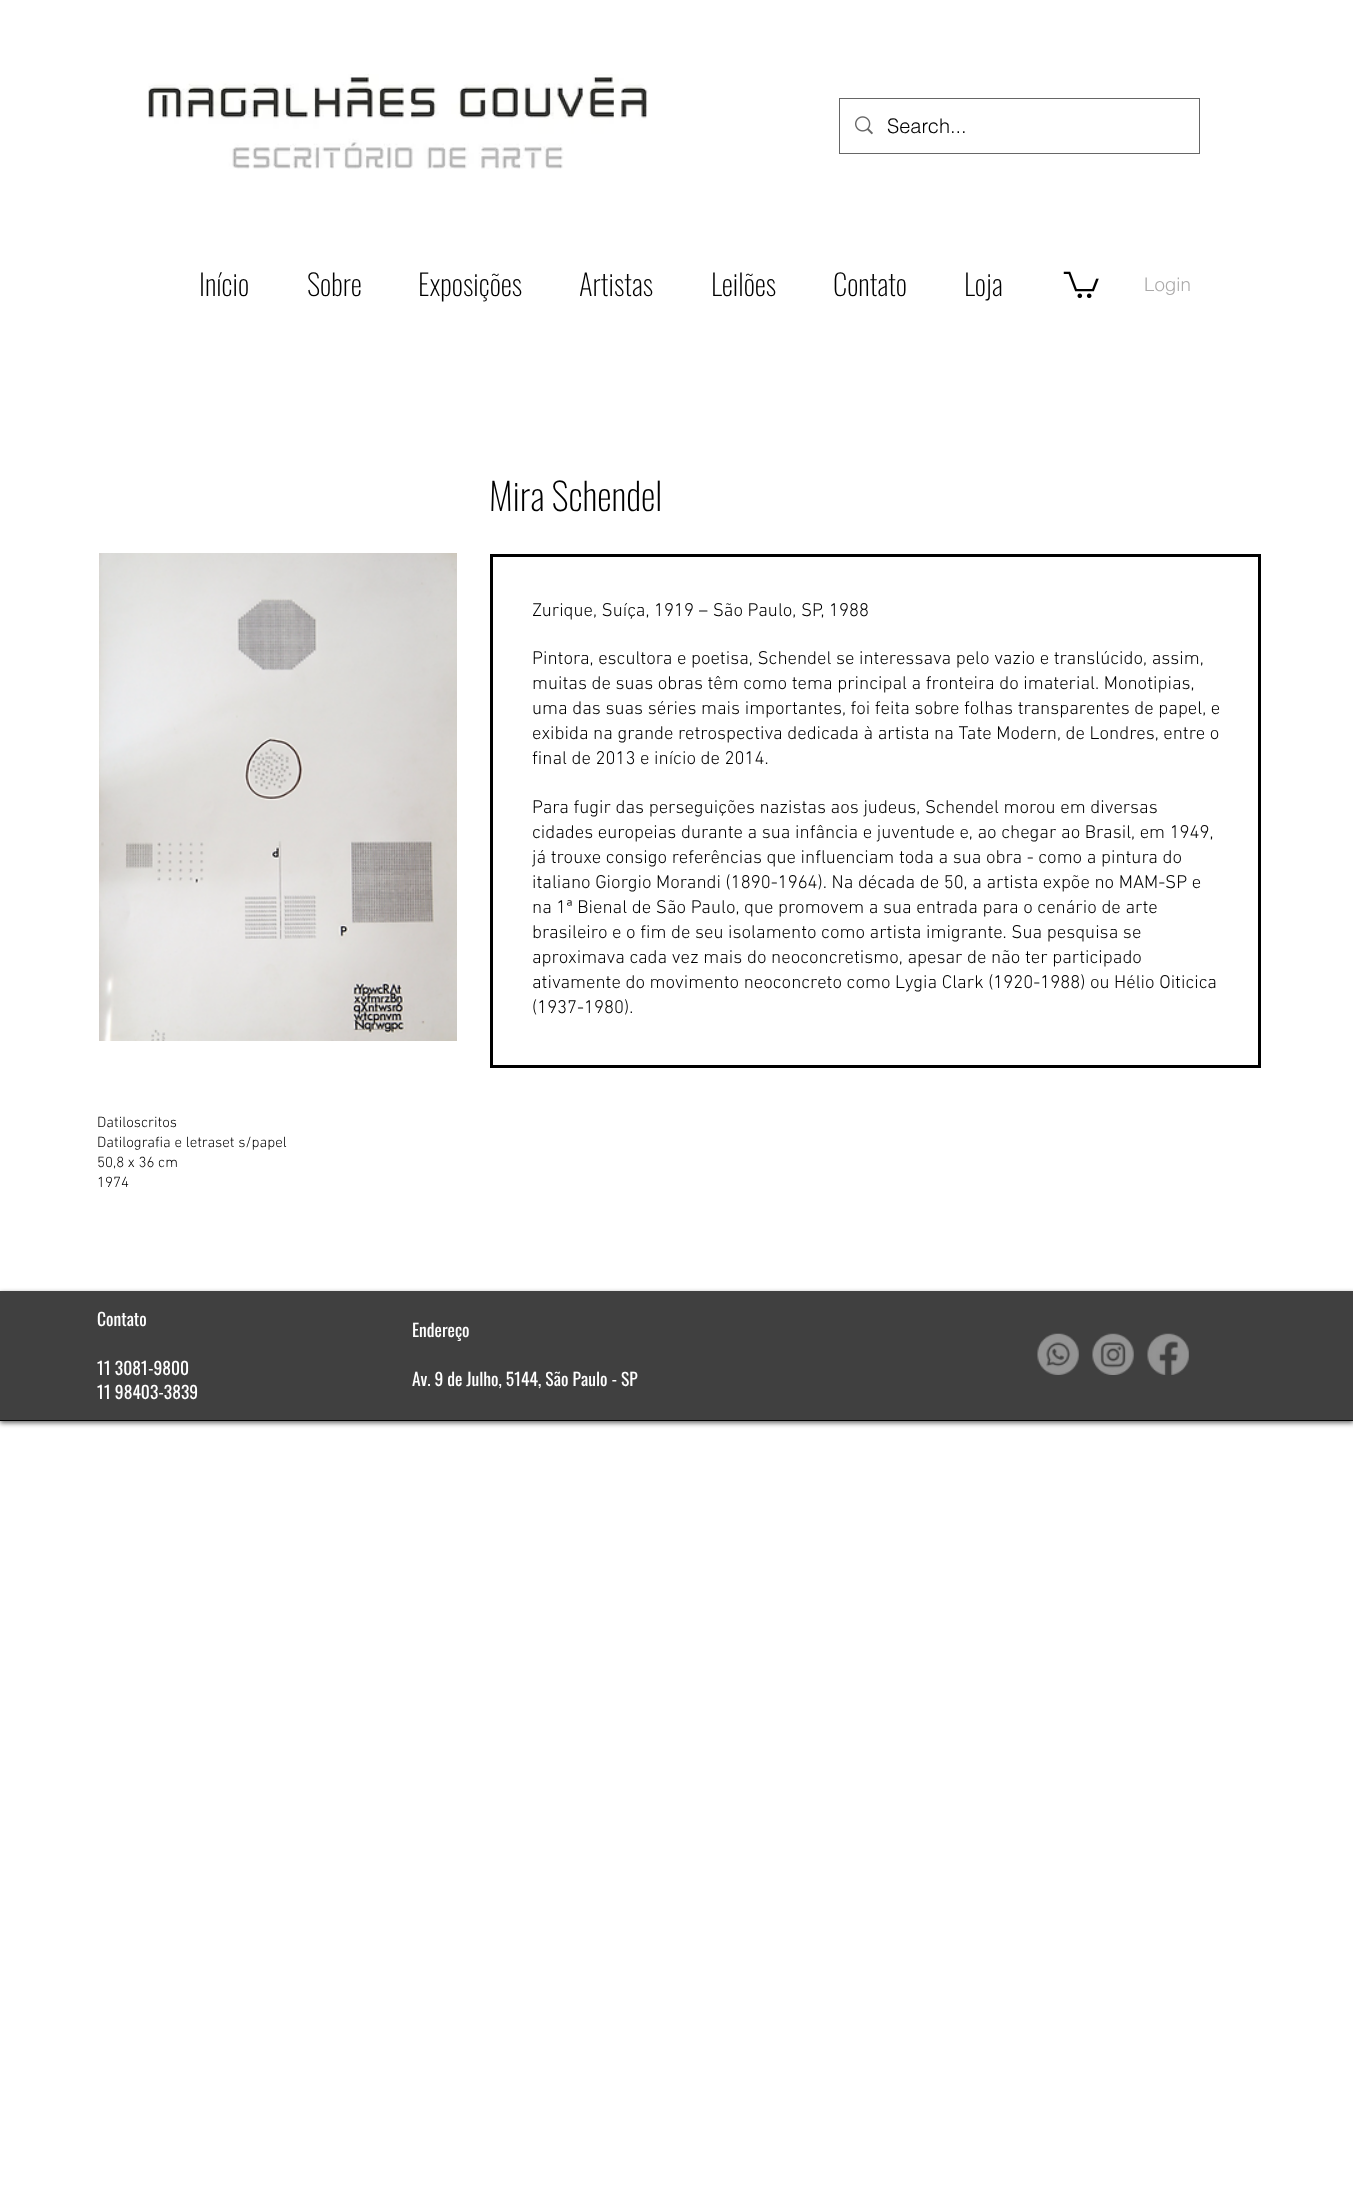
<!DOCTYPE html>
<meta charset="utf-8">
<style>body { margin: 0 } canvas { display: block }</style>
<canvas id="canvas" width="1353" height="2194"></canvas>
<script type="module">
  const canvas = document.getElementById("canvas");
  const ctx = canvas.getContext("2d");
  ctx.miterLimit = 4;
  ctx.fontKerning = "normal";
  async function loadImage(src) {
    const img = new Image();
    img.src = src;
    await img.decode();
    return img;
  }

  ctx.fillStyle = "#ffffff";
  ctx.fillRect(0, 0, 1353, 2194);
  ctx.drawImage(await loadImage("img1.png"), 148, 74, 500, 95);
  ctx.strokeStyle = "#666666";
  ctx.strokeRect(839.5, 98.5, 360, 55);
  ctx.drawImage(await loadImage("img2.png"), 855, 116, 18, 19);
  ctx.font = "300 20px helvetica";
  ctx.fillStyle = "#000000";
  ctx.fillText("Search...", 887, 133);
  ctx.font = "200 29px Oswald";
  ctx.fillText("Início", 199, 296);
  ctx.fillText("Sobre", 307, 296);
  ctx.fillText("Exposições", 418, 296);
  ctx.fillText("Artistas", 579, 296);
  ctx.fillText("Leilões", 711, 296);
  ctx.fillText("Contato", 833, 296);
  ctx.fillText("Loja", 964, 296);
  ctx.drawImage(await loadImage("img3.png"), 1063, 271, 36, 28);
  ctx.font = "300 18.75px helvetica";
  ctx.fillStyle = "#abaaaa";
  ctx.fillText("Login", 1144, 291);
  ctx.font = "200 37.5px Oswald";
  ctx.fillStyle = "#000000";
  ctx.fillText("Mira Schendel", 489, 511);
  ctx.drawImage(await loadImage("img4.png"), 99, 553, 358, 488);
  ctx.strokeStyle = "#000000";
  ctx.lineWidth = 3;
  ctx.strokeRect(491.5, 555.5, 768, 511);
  ctx.font = "300 18.75px 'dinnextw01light'";
  ctx.fillText("Zurique, Suíça, 1919 – São Paulo, SP, 1988", 532, 616);
  ctx.fillText("Pintora, escultora e poetisa, Schendel se interessava pelo vazio e translúcido, assim,", 532, 664);
  ctx.fillText("muitas de suas obras têm como tema principal a fronteira do imaterial. Monotipias,", 532, 689);
  ctx.fillText("uma das suas séries mais importantes, foi feita sobre folhas transparentes de papel, e", 532, 714);
  ctx.fillText("exibida na grande retrospectiva dedicada à artista na Tate Modern, de Londres, entre o", 532, 739);
  ctx.fillText("final de 2013 e início de 2014.", 532, 764);
  ctx.fillText("Para fugir das perseguições nazistas aos judeus, Schendel morou em diversas", 532, 813);
  ctx.fillText("cidades europeias durante a sua infância e juventude e, ao chegar ao Brasil, em 1949,", 532, 838);
  ctx.fillText("já trouxe consigo referências que influenciam toda a sua obra - como a pintura do", 532, 863);
  ctx.fillText("italiano Giorgio Morandi (1890-1964). Na década de 50, a artista expõe no MAM-SP e", 532, 888);
  ctx.fillText("na 1ª Bienal de São Paulo, que promovem a sua entrada para o cenário de arte", 532, 913);
  ctx.fillText("brasileiro e o fim de seu isolamento como artista imigrante. Sua pesquisa se", 532, 938);
  ctx.fillText("aproximava cada vez mais do neoconcretismo, apesar de não ter participado", 532, 963);
  ctx.fillText("ativamente do movimento neoconcreto como Lygia Clark (1920-1988) ou Hélio Oiticica", 532, 988);
  ctx.fillText("(1937-1980).", 532, 1013);
  ctx.font = "300 15px 'dinnextw01light'";
  ctx.fillText("Datiloscritos", 97, 1127);
  ctx.fillText("Datilografia e letraset s/papel", 97, 1147);
  ctx.fillText("50,8 x 36 cm", 97, 1167);
  ctx.fillText("1974", 97, 1187);
  ctx.fillStyle = "rgba(0, 0, 0, 0.6)";
  ctx.filter = "blur(2.5px)";
  ctx.beginPath();
  ctx.rect(0, 1293, 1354, 130);
  ctx.fill();
  ctx.filter = "none";
  ctx.fillStyle = "#000000";
  ctx.fillRect(0, 1420, 1353, 1);
  ctx.fillStyle = "#404040";
  ctx.fillRect(0, 1291, 1353, 129);
  ctx.font = "17.5px Oswald";
  ctx.fillStyle = "#ffffff";
  ctx.fillText("Contato", 97, 1326);
  ctx.fillText("11 3081-9800", 97, 1375);
  ctx.fillText("11 98403-3839", 97, 1399);
  ctx.fillText("Endereço", 412, 1337);
  ctx.fillText("Av. 9 de Julho, 5144, São Paulo - SP", 412, 1386);
  ctx.drawImage(await loadImage("img5.png"), 1037, 1333, 42, 42);
  ctx.drawImage(await loadImage("img6.png"), 1092, 1333, 42, 42);
  ctx.drawImage(await loadImage("img7.png"), 1147, 1333, 42, 42);
</script>
